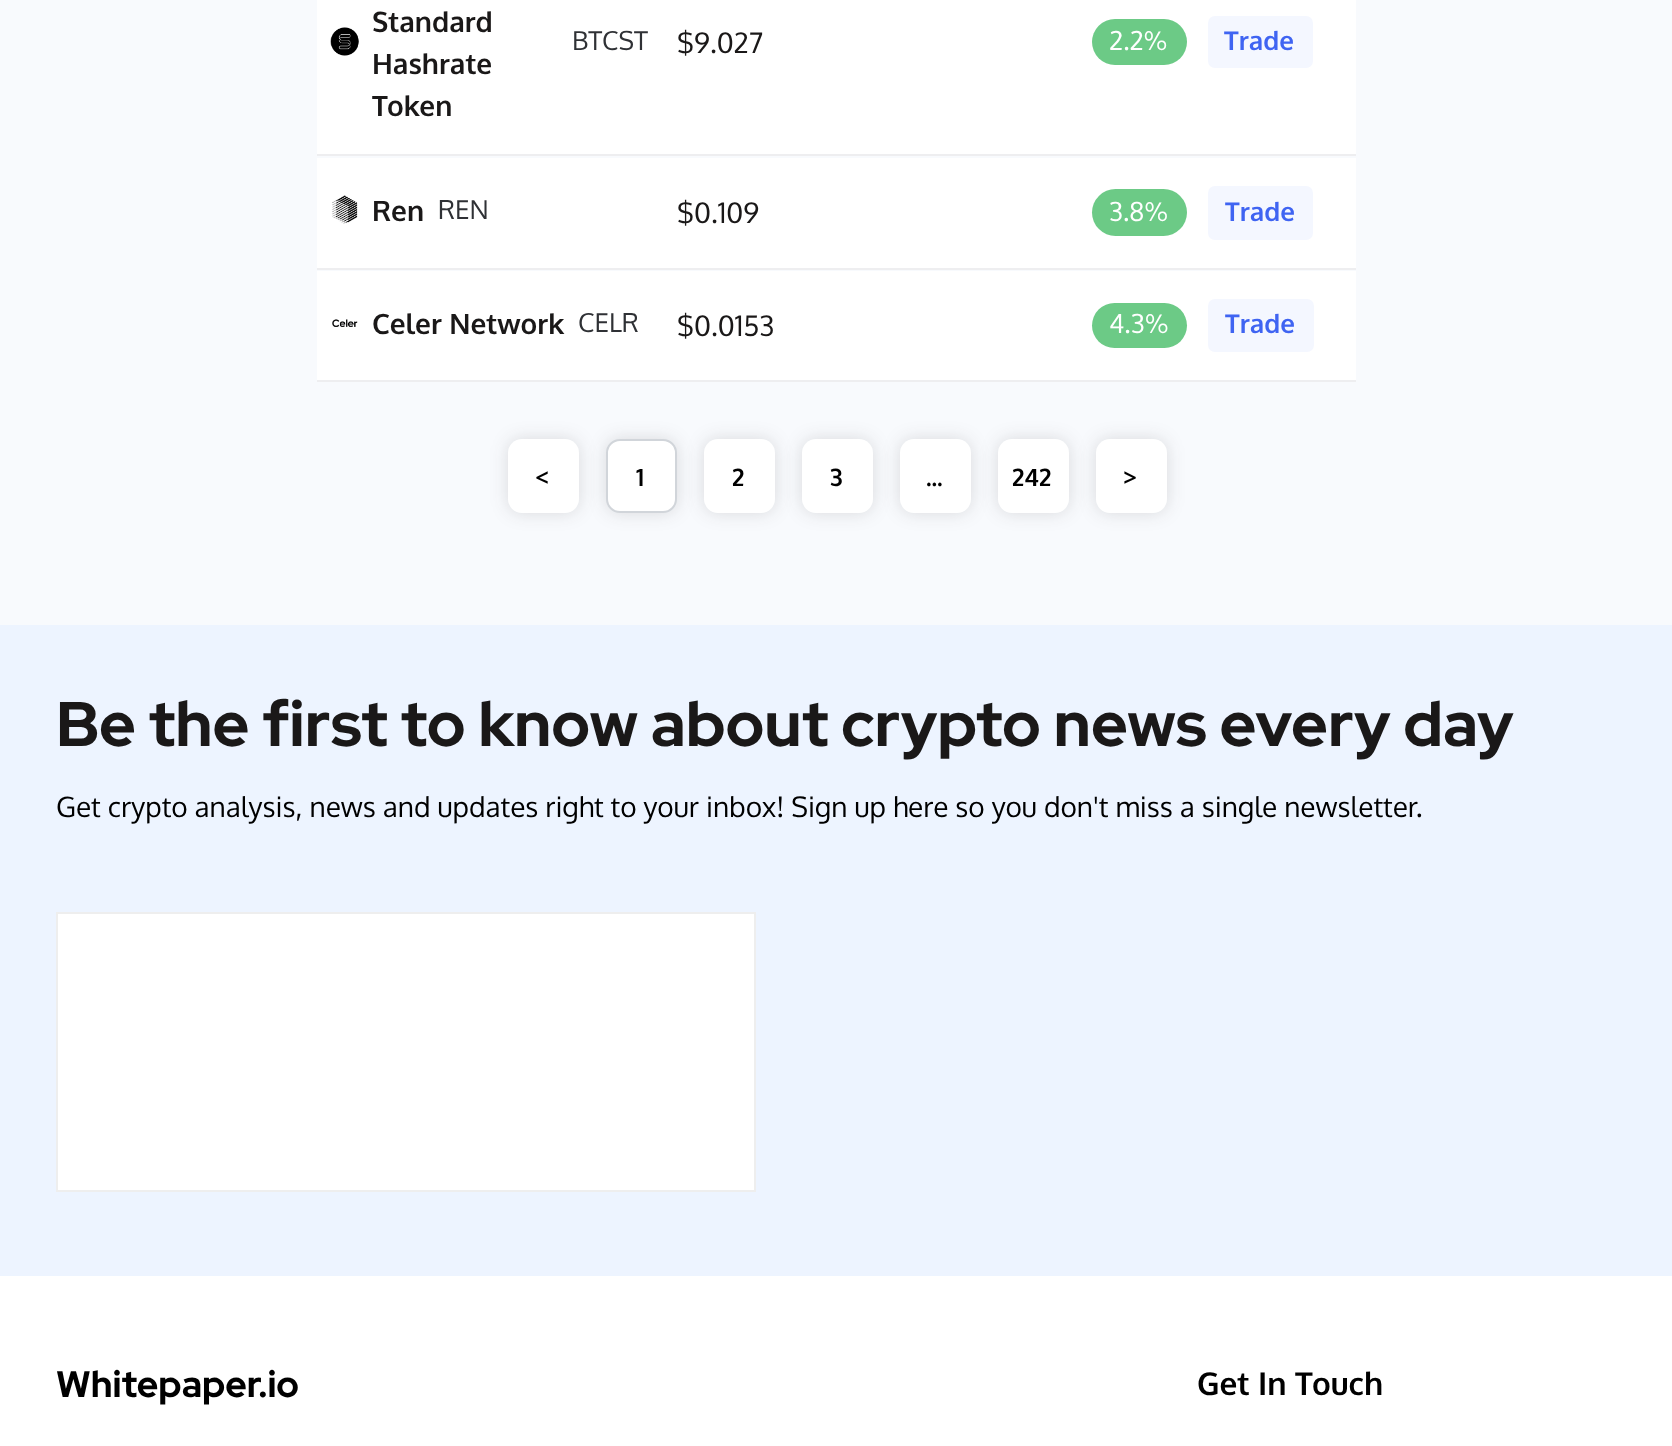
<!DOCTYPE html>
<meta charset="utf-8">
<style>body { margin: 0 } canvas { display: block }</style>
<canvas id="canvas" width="1672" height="1446"></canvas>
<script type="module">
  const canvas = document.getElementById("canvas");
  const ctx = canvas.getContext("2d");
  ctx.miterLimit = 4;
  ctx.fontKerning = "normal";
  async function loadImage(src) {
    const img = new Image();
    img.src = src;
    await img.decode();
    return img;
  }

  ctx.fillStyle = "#ffffff";
  ctx.fillRect(0, 0, 1672, 1446);
  ctx.fillStyle = "#f8fafd";
  ctx.fillRect(0, 0, 1672, 625);
  ctx.fillStyle = "#eeeef0";
  ctx.fillRect(317, 154, 1039, 2);
  ctx.fillStyle = "#ffffff";
  ctx.fillRect(317, 0, 1039, 154);
  ctx.drawImage(await loadImage("img1.png"), 330, 27, 29, 29);
  ctx.font = "bold 28px Oxygen";
  ctx.fillStyle = "#1a1818";
  ctx.fillText("Standard", 372, 32);
  ctx.fillText("Hashrate", 372, 74);
  ctx.fillText("Token", 372, 116);
  ctx.font = "26px Oxygen";
  ctx.fillStyle = "#2f3135";
  ctx.fillText("BTCST", 572, 50);
  ctx.font = "28px Oxygen";
  ctx.fillStyle = "#1a1818";
  ctx.fillText("$9.027", 677, 53);
  ctx.fillStyle = "#6cca86";
  ctx.beginPath();
  ctx.roundRect(1092, 19, 95, 46, 23);
  ctx.fill();
  ctx.font = "26px Oxygen";
  ctx.fillStyle = "#ffffff";
  ctx.fillText("2.2%", 1109, 50);
  ctx.fillStyle = "#f4f7ff";
  ctx.beginPath();
  ctx.roundRect(1208, 16, 105, 52, 7);
  ctx.fill();
  ctx.font = "bold 26px Oxygen";
  ctx.fillStyle = "#3f64f2";
  ctx.fillText("Trade", 1224, 50);
  ctx.fillStyle = "#eeeef0";
  ctx.fillRect(317, 268, 1039, 2);
  ctx.fillStyle = "#ffffff";
  ctx.fillRect(317, 158, 1039, 110);
  ctx.drawImage(await loadImage("img2.png"), 332, 195, 26, 29);
  ctx.font = "bold 28px Oxygen";
  ctx.fillStyle = "#1a1818";
  ctx.fillText("Ren", 372, 221);
  ctx.font = "26px Oxygen";
  ctx.fillStyle = "#2f3135";
  ctx.fillText("REN", 438, 219);
  ctx.font = "28px Oxygen";
  ctx.fillStyle = "#1a1818";
  ctx.fillText("$0.109", 677, 223);
  ctx.fillStyle = "#6cca86";
  ctx.beginPath();
  ctx.roundRect(1092, 189, 95, 47, 23.5);
  ctx.fill();
  ctx.font = "26px Oxygen";
  ctx.fillStyle = "#ffffff";
  ctx.fillText("3.8%", 1109, 221);
  ctx.fillStyle = "#f4f7ff";
  ctx.beginPath();
  ctx.roundRect(1208, 186, 105, 54, 7);
  ctx.fill();
  ctx.font = "bold 26px Oxygen";
  ctx.fillStyle = "#3f64f2";
  ctx.fillText("Trade", 1225, 221);
  ctx.fillStyle = "#eeeef0";
  ctx.fillRect(317, 380, 1039, 2);
  ctx.fillStyle = "#ffffff";
  ctx.fillRect(317, 271, 1039, 109);
  ctx.drawImage(await loadImage("img3.png"), 332, 319, 26, 8);
  ctx.font = "bold 28px Oxygen";
  ctx.fillStyle = "#1a1818";
  ctx.fillText("Celer Network", 372, 334);
  ctx.font = "26px Oxygen";
  ctx.fillStyle = "#2f3135";
  ctx.fillText("CELR", 578, 332);
  ctx.font = "28px Oxygen";
  ctx.fillStyle = "#1a1818";
  ctx.fillText("$0.0153", 677, 336);
  ctx.fillStyle = "#6cca86";
  ctx.beginPath();
  ctx.roundRect(1092, 303, 95, 45, 22.5);
  ctx.fill();
  ctx.font = "26px Oxygen";
  ctx.fillStyle = "#ffffff";
  ctx.fillText("4.3%", 1109, 333);
  ctx.fillStyle = "#f4f7ff";
  ctx.beginPath();
  ctx.roundRect(1208, 299, 106, 53, 7);
  ctx.fill();
  ctx.font = "bold 26px Oxygen";
  ctx.fillStyle = "#3f64f2";
  ctx.fillText("Trade", 1225, 333);
  ctx.fillStyle = "rgba(39, 36, 36, 0.15)";
  ctx.filter = "blur(9px)";
  ctx.beginPath();
  ctx.roundRect(508, 439, 71, 74, 14);
  ctx.fill();
  ctx.filter = "none";
  ctx.fillStyle = "#ffffff";
  ctx.beginPath();
  ctx.roundRect(508, 439, 71, 74, 14);
  ctx.fill();
  ctx.font = "bold 24px Oxygen";
  ctx.fillStyle = "#000000";
  ctx.fillText("<", 535, 486);
  ctx.fillStyle = "rgba(39, 36, 36, 0.15)";
  ctx.filter = "blur(9px)";
  ctx.beginPath();
  ctx.roundRect(606, 439, 71, 74, 14);
  ctx.fill();
  ctx.filter = "none";
  ctx.fillStyle = "#ffffff";
  ctx.beginPath();
  ctx.roundRect(607, 440, 69, 72, 13);
  ctx.fill();
  ctx.strokeStyle = "#d1d5da";
  ctx.lineWidth = 2;
  ctx.stroke();
  ctx.fillStyle = "#000000";
  ctx.fillText("1", 636, 486);
  ctx.fillStyle = "rgba(39, 36, 36, 0.15)";
  ctx.filter = "blur(9px)";
  ctx.beginPath();
  ctx.roundRect(704, 439, 71, 74, 14);
  ctx.fill();
  ctx.filter = "none";
  ctx.fillStyle = "#ffffff";
  ctx.beginPath();
  ctx.roundRect(704, 439, 71, 74, 14);
  ctx.fill();
  ctx.fillStyle = "#000000";
  ctx.fillText("2", 732, 486);
  ctx.fillStyle = "rgba(39, 36, 36, 0.15)";
  ctx.filter = "blur(9px)";
  ctx.beginPath();
  ctx.roundRect(802, 439, 71, 74, 14);
  ctx.fill();
  ctx.filter = "none";
  ctx.fillStyle = "#ffffff";
  ctx.beginPath();
  ctx.roundRect(802, 439, 71, 74, 14);
  ctx.fill();
  ctx.fillStyle = "#000000";
  ctx.fillText("3", 830, 486);
  ctx.fillStyle = "rgba(39, 36, 36, 0.15)";
  ctx.filter = "blur(9px)";
  ctx.beginPath();
  ctx.roundRect(900, 439, 71, 74, 14);
  ctx.fill();
  ctx.filter = "none";
  ctx.fillStyle = "#ffffff";
  ctx.beginPath();
  ctx.roundRect(900, 439, 71, 74, 14);
  ctx.fill();
  ctx.fillStyle = "rgba(39, 36, 36, 0.15)";
  ctx.filter = "blur(9px)";
  ctx.beginPath();
  ctx.roundRect(998, 439, 71, 74, 14);
  ctx.fill();
  ctx.filter = "none";
  ctx.fillStyle = "#ffffff";
  ctx.beginPath();
  ctx.roundRect(998, 439, 71, 74, 14);
  ctx.fill();
  ctx.fillStyle = "#000000";
  ctx.fillText("242", 1012, 486);
  ctx.fillStyle = "rgba(39, 36, 36, 0.15)";
  ctx.filter = "blur(9px)";
  ctx.beginPath();
  ctx.roundRect(1096, 439, 71, 74, 14);
  ctx.fill();
  ctx.filter = "none";
  ctx.fillStyle = "#ffffff";
  ctx.beginPath();
  ctx.roundRect(1096, 439, 71, 74, 14);
  ctx.fill();
  ctx.fillStyle = "#000000";
  ctx.fillText(">", 1123, 486);
  ctx.fillText("...", 926, 486);
  ctx.fillStyle = "#edf4ff";
  ctx.fillRect(0, 625, 1672, 651);
  ctx.font = "bold 63px Red Hat Display";
  ctx.fillStyle = "#1a1818";
  ctx.fillText("Be the first to know about crypto news every day", 56, 746);
  ctx.font = "28px Oxygen";
  ctx.fillStyle = "#000000";
  ctx.fillText("Get crypto analysis, news and updates right to your inbox! Sign up here so you don't miss a single newsletter.", 56, 817);
  ctx.fillStyle = "#ffffff";
  ctx.beginPath();
  ctx.rect(57, 913, 698, 278);
  ctx.fill();
  ctx.strokeStyle = "#eeeeee";
  ctx.stroke();
  ctx.font = "bold 36.75px Red Hat Display";
  ctx.fillStyle = "#000000";
  ctx.fillText("Whitepaper.io", 56, 1397);
  ctx.font = "bold 31.5px Oxygen";
  ctx.fillText("Get In Touch", 1197, 1395);
</script>
